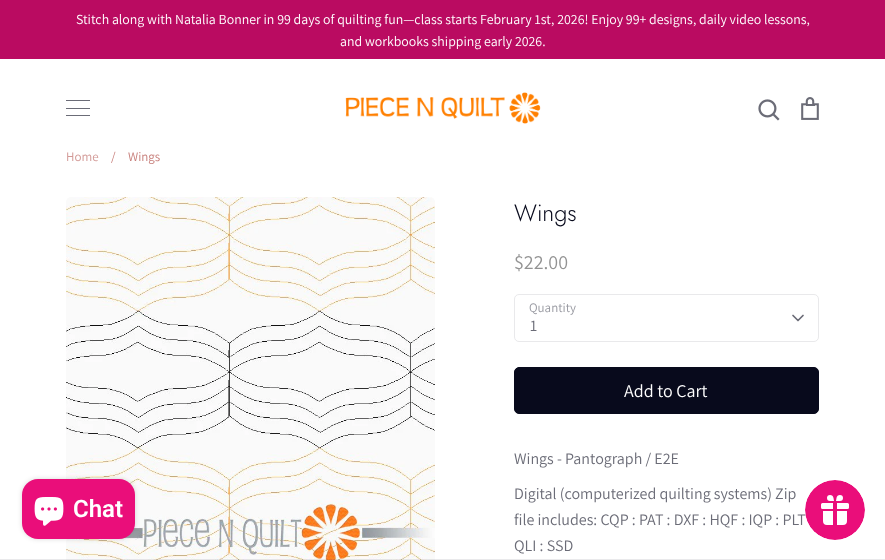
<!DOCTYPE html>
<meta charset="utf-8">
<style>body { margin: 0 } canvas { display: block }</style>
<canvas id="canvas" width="885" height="560"></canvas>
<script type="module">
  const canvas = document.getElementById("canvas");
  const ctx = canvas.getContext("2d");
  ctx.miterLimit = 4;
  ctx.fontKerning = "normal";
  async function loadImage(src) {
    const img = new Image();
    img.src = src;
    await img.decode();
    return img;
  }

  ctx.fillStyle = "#ffffff";
  ctx.fillRect(0, 0, 885, 560);
  ctx.fillStyle = "#ba0b61";
  ctx.fillRect(0, 0, 885, 59);
  ctx.font = "13.87px Assistant";
  ctx.fillStyle = "#ffffff";
  ctx.fillText("Stitch along with Natalia Bonner in 99 days of quilting fun—class starts February 1st, 2026! Enjoy 99+ designs, daily video lessons,", 76, 24);
  ctx.fillText("and workbooks shipping early 2026.", 340, 46);
  ctx.fillStyle = "#6b6c77";
  ctx.fillRect(66, 100, 24, 1);
  ctx.fillRect(66, 108, 24, 1);
  ctx.fillRect(66, 115, 24, 1);
  ctx.drawImage(await loadImage("img1.png"), 345, 92, 196, 32);
  ctx.drawImage(await loadImage("img2.png"), 758, 99, 22, 22);
  ctx.drawImage(await loadImage("img3.png"), 801, 97, 18, 23);
  ctx.drawImage(await loadImage("img5.png"), 66, 197, 369, 363);
  ctx.fillStyle = "rgba(107, 108, 119, 0.15)";
  ctx.fillRect(0, 559, 885, 1);
  ctx.font = "13px Assistant";
  ctx.fillStyle = "#d29895";
  ctx.fillText("Home", 66, 161);
  ctx.fillStyle = "#c77e7a";
  ctx.fillText("/", 111, 161);
  ctx.fillText("Wings", 128, 161);
  ctx.fillStyle = "rgba(0, 0, 0, 0.15)";
  ctx.filter = "blur(2.5px)";
  ctx.beginPath();
  ctx.roundRect(22, 479, 113, 60, 16);
  ctx.fill();
  ctx.filter = "none";
  ctx.fillStyle = "#ea0e7a";
  ctx.beginPath();
  ctx.roundRect(22, 479, 113, 60, 16);
  ctx.fill();
  ctx.drawImage(await loadImage("img4.png"), 34, 497, 30, 29);
  ctx.font = "600 24px Roboto";
  ctx.fillStyle = "#ffffff";
  ctx.fillText("Chat", 73, 517);
  ctx.font = "300 23.5px Jost";
  ctx.fillStyle = "#080a1c";
  ctx.fillText("Wings", 514, 221);
  ctx.font = "20px Assistant";
  ctx.fillStyle = "#939393";
  ctx.fillText("$22.00", 514, 269);
  ctx.font = "13px Assistant";
  ctx.fillStyle = "#9798a0";
  ctx.fillText("Quantity", 529, 312);
  ctx.beginPath();
  ctx.roundRect(514.5, 294.5, 304, 47, 4.5);
  ctx.strokeStyle = "#e9e9eb";
  ctx.stroke();
  ctx.beginPath();
  ctx.moveTo(793, 315.5);
  ctx.lineTo(798, 320.5);
  ctx.lineTo(803, 315.5);
  ctx.strokeStyle = "#6b6c77";
  ctx.lineWidth = 1.7;
  ctx.lineCap = "round";
  ctx.lineJoin = "round";
  ctx.stroke();
  ctx.font = "16px Assistant";
  ctx.fillStyle = "#6b6c77";
  ctx.fillText("1", 530, 331);
  ctx.fillStyle = "#080a1c";
  ctx.beginPath();
  ctx.roundRect(514.5, 367.5, 304, 46, 4.5);
  ctx.fill();
  ctx.strokeStyle = "#080a1c";
  ctx.lineWidth = 1;
  ctx.lineJoin = "miter";
  ctx.stroke();
  ctx.font = "18px Assistant";
  ctx.fillStyle = "#ffffff";
  ctx.fillText("Add to Cart", 624, 397);
  ctx.font = "16px Assistant";
  ctx.fillStyle = "#6b6c77";
  ctx.fillText("Wings - Pantograph / E2E", 514, 464);
  ctx.fillText("Digital (computerized quilting systems) Zip", 514, 499);
  ctx.fillText("file includes: CQP : PAT : DXF : HQF : IQP : PLT", 514, 525);
  ctx.fillText("QLI : SSD", 514, 551);
  ctx.drawImage(await loadImage("img6.png"), 805, 480, 60, 60);
</script>
